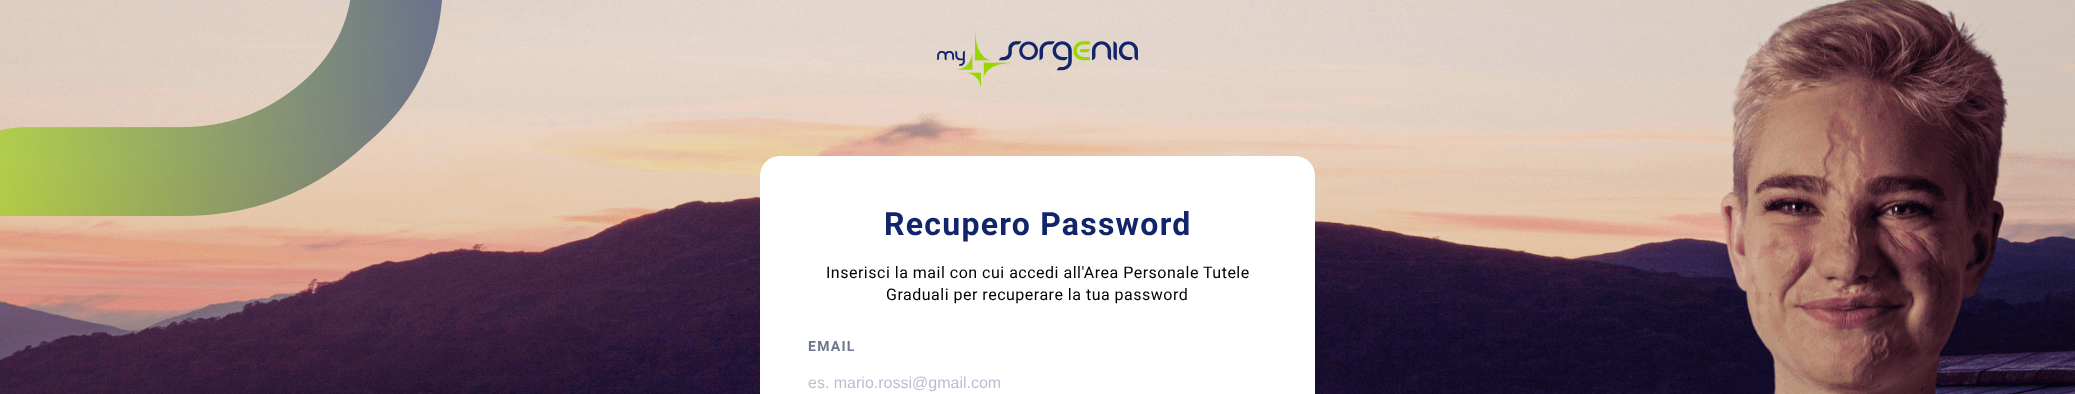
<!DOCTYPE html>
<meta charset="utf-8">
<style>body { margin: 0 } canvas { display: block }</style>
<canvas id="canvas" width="2075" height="394"></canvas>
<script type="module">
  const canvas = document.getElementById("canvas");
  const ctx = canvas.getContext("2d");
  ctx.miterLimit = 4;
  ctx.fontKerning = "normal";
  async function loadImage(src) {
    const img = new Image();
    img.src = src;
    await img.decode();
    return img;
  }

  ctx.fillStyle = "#ffffff";
  ctx.fillRect(0, 0, 2075, 394);
  ctx.drawImage(await loadImage("img1.png"), 0, 0, 2075, 394);
  ctx.drawImage(await loadImage("img2.png"), 0, 0, 442, 216);
  ctx.drawImage(await loadImage("img3.png"), 937, 32, 201, 56);
  ctx.beginPath();
  ctx.roundRect(760, 156, 555, 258, 20);
  ctx.fill();
  ctx.letterSpacing = "1.25px";
  ctx.font = "bold 32px Roboto";
  ctx.fillStyle = "#12256a";
  ctx.fillText("Recupero Password", 884, 235);
  ctx.letterSpacing = "0.5px";
  ctx.font = "16px Roboto";
  ctx.fillStyle = "#000000";
  ctx.fillText("Inserisci la mail con cui accedi all'Area Personale Tutele", 826, 278);
  ctx.fillText("Graduali per recuperare la tua password", 886, 300);
  ctx.letterSpacing = "1.25px";
  ctx.font = "bold 14px Roboto";
  ctx.fillStyle = "#6e7689";
  ctx.fillText("EMAIL", 808, 351);
  ctx.letterSpacing = "0px";
  ctx.font = "16px Liberation Sans";
  ctx.fillStyle = "#b7bfd2";
  ctx.fillText("es. mario.rossi@gmail.com", 808, 388);
</script>
